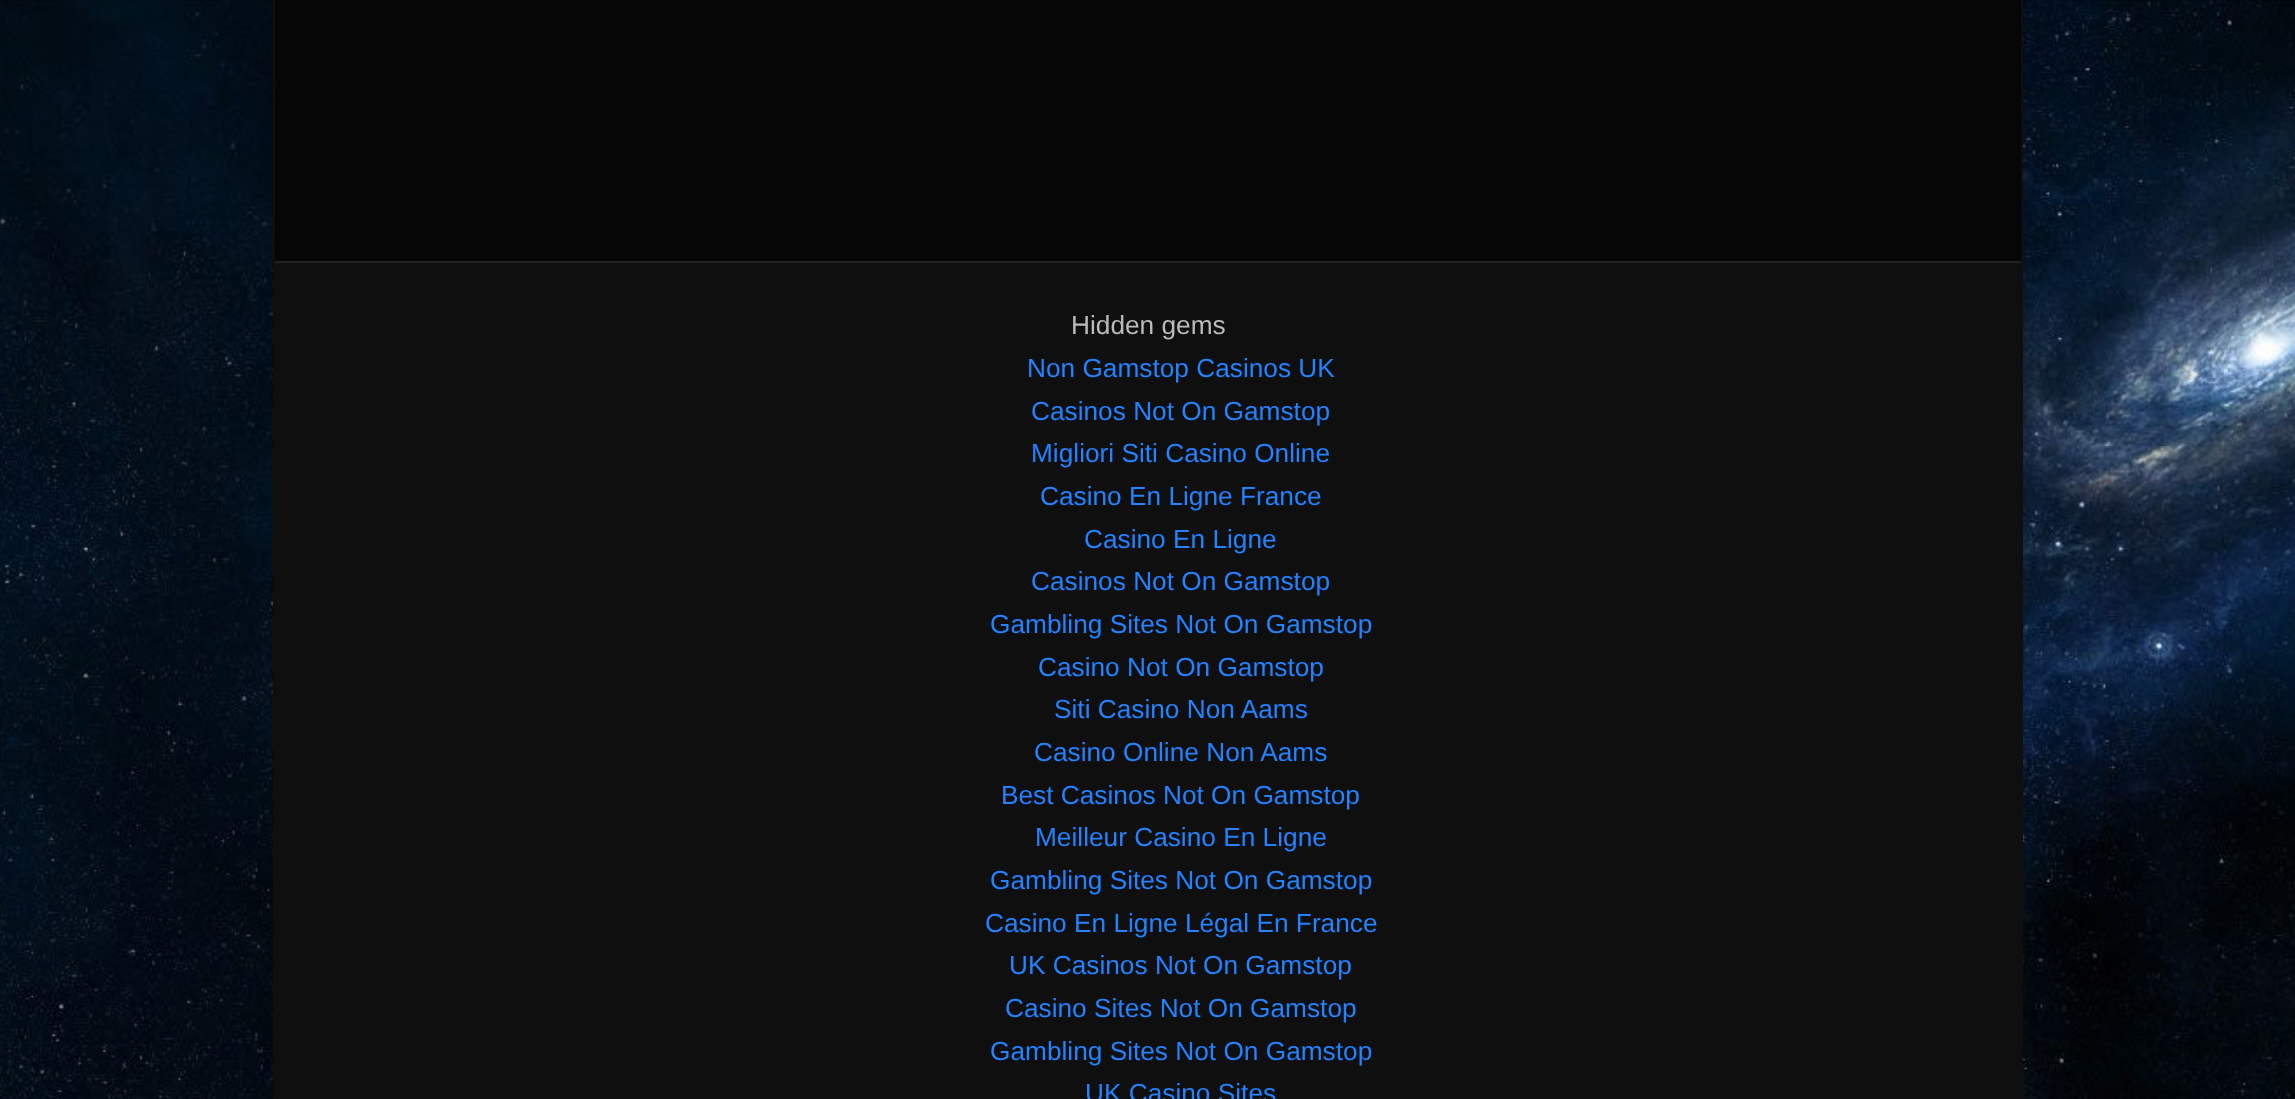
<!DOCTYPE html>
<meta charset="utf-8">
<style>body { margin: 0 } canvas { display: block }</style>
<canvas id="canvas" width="2295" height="1099"></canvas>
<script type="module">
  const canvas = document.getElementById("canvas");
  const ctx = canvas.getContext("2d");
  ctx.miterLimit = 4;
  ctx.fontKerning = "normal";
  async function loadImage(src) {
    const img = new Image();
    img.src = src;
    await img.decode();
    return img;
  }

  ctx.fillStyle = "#ffffff";
  ctx.fillRect(0, 0, 2295, 1099);
  ctx.drawImage(await loadImage("img1.png"), 0, 0, 2295, 1099);
  ctx.fillStyle = "#0f0f0f";
  ctx.fillRect(273, 0, 1750, 1099);
  ctx.fillStyle = "#060606";
  ctx.fillRect(275, 0, 1746, 261);
  ctx.fillStyle = "#222222";
  ctx.fillRect(275, 261, 1746, 2);
  ctx.font = "26.25px Liberation Sans";
  ctx.fillStyle = "#bbbbbb";
  ctx.fillText("Hidden gems", 1071, 334);
  ctx.fillStyle = "#2382ff";
  ctx.fillText("Non Gamstop Casinos UK", 1027, 377);
  ctx.fillText("Casinos Not On Gamstop", 1031, 420);
  ctx.fillText("Migliori Siti Casino Online", 1031, 462);
  ctx.fillText("Casino En Ligne France", 1040, 505);
  ctx.fillText("Casino En Ligne", 1084, 548);
  ctx.fillText("Casinos Not On Gamstop", 1031, 590);
  ctx.fillText("Gambling Sites Not On Gamstop", 990, 633);
  ctx.fillText("Casino Not On Gamstop", 1038, 676);
  ctx.fillText("Siti Casino Non Aams", 1054, 718);
  ctx.fillText("Casino Online Non Aams", 1034, 761);
  ctx.fillText("Best Casinos Not On Gamstop", 1001, 804);
  ctx.fillText("Meilleur Casino En Ligne", 1035, 846);
  ctx.fillText("Gambling Sites Not On Gamstop", 990, 889);
  ctx.fillText("Casino En Ligne Légal En France", 985, 932);
  ctx.fillText("UK Casinos Not On Gamstop", 1009, 974);
  ctx.fillText("Casino Sites Not On Gamstop", 1005, 1017);
  ctx.fillText("Gambling Sites Not On Gamstop", 990, 1060);
  ctx.fillText("UK Casino Sites", 1085, 1102);
</script>
